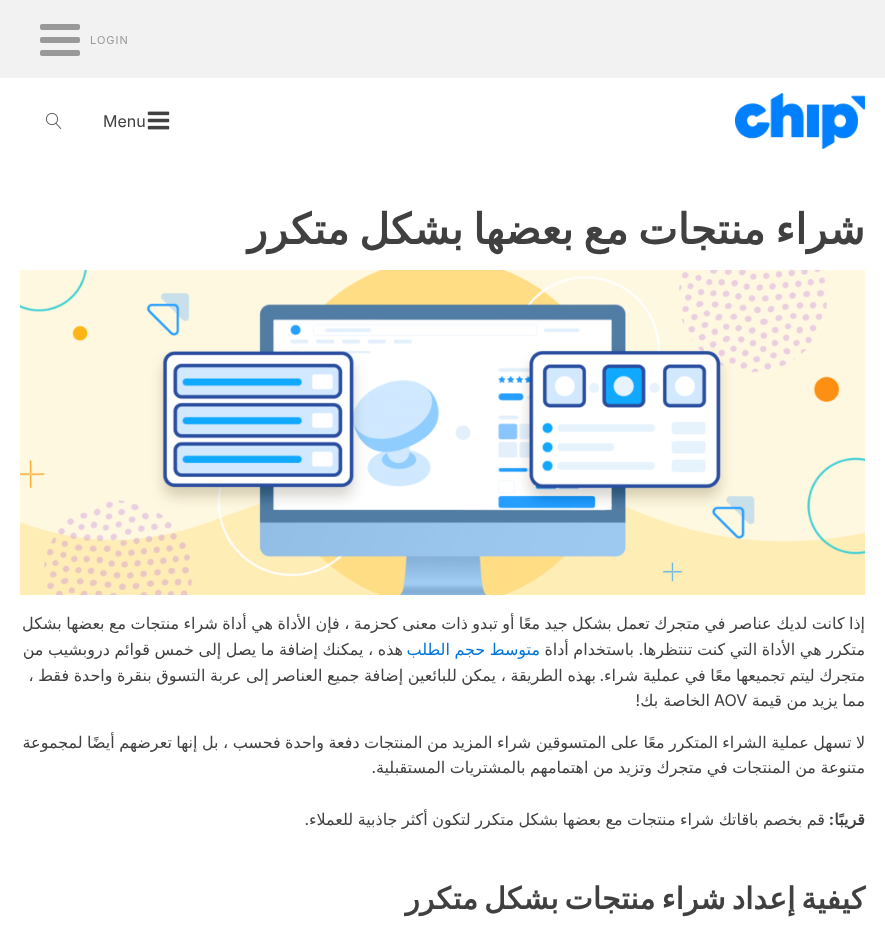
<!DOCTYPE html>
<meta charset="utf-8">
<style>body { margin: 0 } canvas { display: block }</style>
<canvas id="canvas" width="885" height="934"></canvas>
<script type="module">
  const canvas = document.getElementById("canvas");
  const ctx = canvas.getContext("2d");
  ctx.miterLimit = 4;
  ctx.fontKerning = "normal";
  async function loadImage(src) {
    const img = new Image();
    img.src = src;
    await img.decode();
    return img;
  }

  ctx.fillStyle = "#ffffff";
  ctx.fillRect(0, 0, 885, 934);
  ctx.fillStyle = "#f2f2f2";
  ctx.fillRect(0, 0, 885, 78);
  ctx.letterSpacing = "1px";
  ctx.font = "11px Inter";
  ctx.fillStyle = "#999999";
  ctx.fillText("LOGIN", 90, 44);
  ctx.beginPath();
  ctx.roundRect(40, 24, 40, 6, 2);
  ctx.fill();
  ctx.beginPath();
  ctx.roundRect(40, 37, 40, 6, 2);
  ctx.fill();
  ctx.beginPath();
  ctx.roundRect(40, 50, 40, 6, 2);
  ctx.fill();
  ctx.drawImage(await loadImage("img1.png"), 735, 93, 130, 56);
  ctx.drawImage(await loadImage("img2.png"), 147, 111, 23, 19);
  ctx.letterSpacing = "0px";
  ctx.font = "16px Inter";
  ctx.fillStyle = "#404040";
  ctx.fillText("Menu", 103, 127);
  ctx.drawImage(await loadImage("img3.png"), 46, 113, 16, 16);
  ctx.wordSpacing = "-3.5px";
  ctx.direction = "rtl";
  ctx.font = "bold 42px DejaVu Sans";
  ctx.fillText("شراء منتجات مع بعضها بشكل متكرر", 865, 244);
  ctx.drawImage(await loadImage("img4.png"), 20, 270, 845, 325);
  ctx.wordSpacing = "-0.6px";
  ctx.font = "16px DejaVu Sans";
  ctx.fillText("إذا كانت لديك عناصر في متجرك تعمل بشكل جيد معًا أو تبدو ذات معنى كحزمة ، فإن الأداة هي أداة شراء منتجات مع بعضها بشكل", 865, 629);
  ctx.wordSpacing = "-0.5px";
  ctx.fillText("متكرر هي الأداة التي كنت تنتظرها", 865, 655);
  ctx.wordSpacing = "0px";
  ctx.font = "16px Inter";
  ctx.fillText(".", 643, 655);
  ctx.wordSpacing = "-0.5px";
  ctx.font = "16px DejaVu Sans";
  ctx.fillText("باستخدام أداة", 634, 655);
  ctx.wordSpacing = "-0.6px";
  ctx.fillStyle = "#0074db";
  ctx.fillText("متوسط حجم الطلب", 540, 655);
  ctx.wordSpacing = "-0.5px";
  ctx.fillStyle = "#404040";
  ctx.fillText("هذه ، يمكنك إضافة ما يصل إلى خمس قوائم دروبشيب من", 403, 655);
  ctx.fillText("متجرك ليتم تجميعها معًا في عملية شراء", 865, 681);
  ctx.fillText("بهذه الطريقة ، يمكن للبائعين إضافة جميع العناصر إلى عربة التسوق بنقرة واحدة فقط ،", 596, 681);
  ctx.wordSpacing = "0px";
  ctx.font = "16px Inter";
  ctx.fillText(".", 604, 681);
  ctx.wordSpacing = "-0.6px";
  ctx.font = "16px DejaVu Sans";
  ctx.fillText("مما يزيد من قيمة", 865, 706);
  ctx.wordSpacing = "0px";
  ctx.direction = "ltr";
  ctx.font = "16px Inter";
  ctx.fillText("AOV", 714, 706);
  ctx.direction = "rtl";
  ctx.font = "16px DejaVu Sans";
  ctx.fillText("الخاصة بك", 710, 706);
  ctx.font = "16px Inter";
  ctx.fillText("!", 640, 706);
  ctx.wordSpacing = "-0.6px";
  ctx.font = "16px DejaVu Sans";
  ctx.fillText("لا تسهل عملية الشراء المتكرر معًا على المتسوقين شراء المزيد من المنتجات دفعة واحدة فحسب ، بل إنها تعرضهم أيضًا لمجموعة", 865, 748);
  ctx.fillText("متنوعة من المنتجات في متجرك وتزيد من اهتمامهم بالمشتريات المستقبلية", 865, 773);
  ctx.wordSpacing = "0px";
  ctx.font = "16px Inter";
  ctx.fillText(".", 376, 773);
  ctx.font = "bold 16px DejaVu Sans";
  ctx.fillText("قريبًا", 865, 825);
  ctx.font = "bold 16px Inter";
  ctx.fillText(":", 834, 825);
  ctx.wordSpacing = "-0.6px";
  ctx.font = "16px DejaVu Sans";
  ctx.fillText("قم بخصم باقاتك شراء منتجات مع بعضها بشكل متكرر لتكون أكثر جاذبية للعملاء", 825, 825);
  ctx.wordSpacing = "0px";
  ctx.font = "16px Inter";
  ctx.fillText(".", 309, 825);
  ctx.wordSpacing = "-3.5px";
  ctx.font = "bold 30px DejaVu Sans";
  ctx.fillText("كيفية إعداد شراء منتجات بشكل متكرر", 865, 909);
</script>
